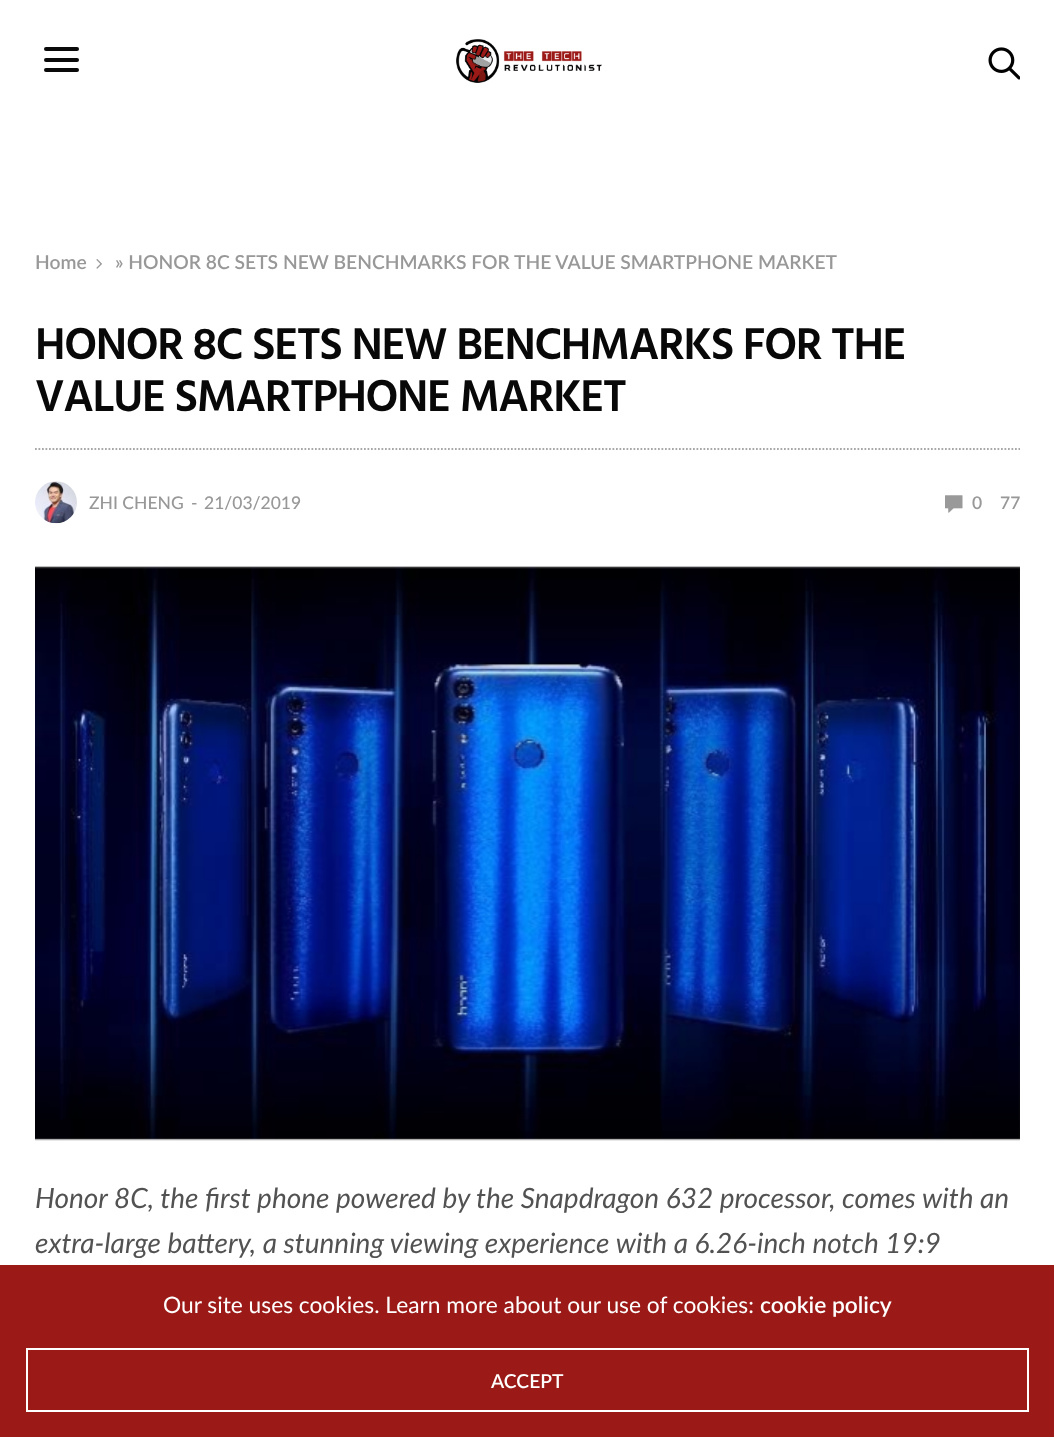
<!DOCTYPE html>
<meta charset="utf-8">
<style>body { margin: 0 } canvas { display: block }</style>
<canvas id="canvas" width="1054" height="1437"></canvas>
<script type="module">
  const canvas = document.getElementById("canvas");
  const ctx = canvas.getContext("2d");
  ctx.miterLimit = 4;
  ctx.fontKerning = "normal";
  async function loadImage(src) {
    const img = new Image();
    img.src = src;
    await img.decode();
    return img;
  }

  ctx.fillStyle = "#ffffff";
  ctx.fillRect(0, 0, 1054, 1437);
  ctx.fillStyle = "#0a0a0a";
  ctx.beginPath();
  ctx.roundRect(44, 47, 35, 4, 2);
  ctx.fill();
  ctx.beginPath();
  ctx.roundRect(44, 58, 35, 4, 2);
  ctx.fill();
  ctx.beginPath();
  ctx.roundRect(44, 68, 35, 4, 2);
  ctx.fill();
  ctx.drawImage(await loadImage("img1.png"), 456, 39, 146, 44);
  ctx.drawImage(await loadImage("img2.png"), 988, 47, 32, 33);
  ctx.font = "600 19.25px Lato";
  ctx.fillStyle = "#989898";
  ctx.fillText("Home", 35, 269);
  ctx.drawImage(await loadImage("img3.png"), 96, 259, 6, 10);
  ctx.fillText("» HONOR 8C SETS NEW BENCHMARKS FOR THE VALUE SMARTPHONE MARKET", 115, 269);
  ctx.beginPath();
  ctx.moveTo(35, 449);
  ctx.lineTo(1020, 449);
  ctx.strokeStyle = "#a8a8a8";
  ctx.lineWidth = 1.8;
  ctx.setLineDash([1.75, 1.75]);
  ctx.stroke();
  ctx.letterSpacing = "-1.35px";
  ctx.font = "600 45.5px Hind Vadodara";
  ctx.fillStyle = "#080808";
  ctx.fillText("HONOR 8C SETS NEW BENCHMARKS FOR THE", 35, 359);
  ctx.fillText("VALUE SMARTPHONE MARKET", 35, 411);
  ctx.drawImage(await loadImage("img4.png"), 35, 481, 42, 43);
  ctx.letterSpacing = "0px";
  ctx.font = "500 17.5px Lato";
  ctx.fillStyle = "#989898";
  ctx.fillText("ZHI CHENG", 89, 509);
  ctx.fillText("-", 191, 509);
  ctx.fillText("21/03/2019", 204, 509);
  ctx.drawImage(await loadImage("img5.png"), 945, 495, 18, 18);
  ctx.font = "600 17.5px Lato";
  ctx.fillText("0", 972, 509);
  ctx.fillText("77", 1000, 509);
  ctx.drawImage(await loadImage("img6.png"), 35, 566, 985, 575);
  ctx.font = "italic 28px Lato";
  ctx.fillStyle = "#525252";
  ctx.fillText("Honor 8C, the first phone powered by the Snapdragon 632 processor, comes with an", 35, 1208);
  ctx.fillText("extra-large battery, a stunning viewing experience with a 6.26-inch notch 19:9", 35, 1253);
  ctx.fillStyle = "#9b1916";
  ctx.fillRect(0, 1265, 1054, 172);
  ctx.font = "22.75px Lato";
  ctx.fillStyle = "#ffffff";
  ctx.fillText("Our site uses cookies. Learn more about our use of cookies:", 163, 1313);
  ctx.font = "600 22.75px Lato";
  ctx.fillText("cookie policy", 760, 1313);
  ctx.strokeStyle = "#ffffff";
  ctx.lineWidth = 2;
  ctx.setLineDash([]);
  ctx.strokeRect(27, 1349, 1001, 62);
  ctx.font = "600 19.25px Lato";
  ctx.fillText("ACCEPT", 491, 1388);
</script>
